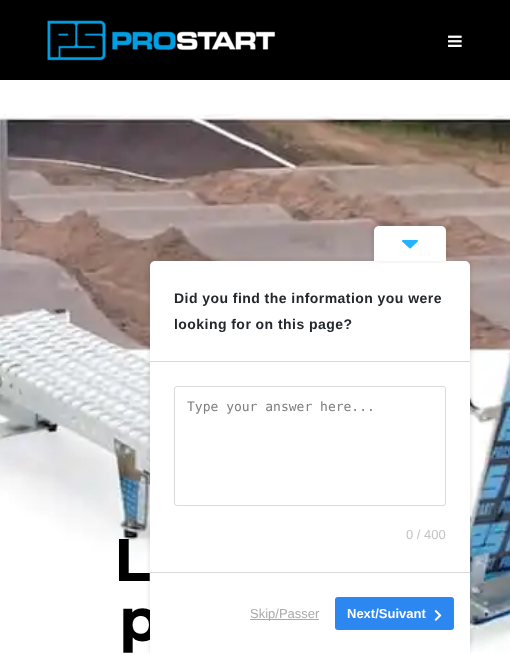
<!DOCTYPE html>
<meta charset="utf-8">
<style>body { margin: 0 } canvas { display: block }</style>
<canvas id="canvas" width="510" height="654"></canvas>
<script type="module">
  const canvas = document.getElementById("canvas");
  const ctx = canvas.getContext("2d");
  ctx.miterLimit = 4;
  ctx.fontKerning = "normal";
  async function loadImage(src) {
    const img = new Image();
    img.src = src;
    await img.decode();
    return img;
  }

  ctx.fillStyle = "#ffffff";
  ctx.fillRect(0, 0, 510, 654);
  ctx.fillStyle = "#000000";
  ctx.fillRect(0, 0, 510, 80);
  ctx.drawImage(await loadImage("img1.png"), 47, 20, 229, 41);
  ctx.drawImage(await loadImage("img2.png"), 448, 35, 14, 12);
  ctx.drawImage(await loadImage("img3.png"), 0, 114, 510, 538);
  ctx.letterSpacing = "-3px";
  ctx.font = "bold 60px Montserrat";
  ctx.fillText("L", 114, 581);
  ctx.fillText("p", 119, 641);
  ctx.fillStyle = "rgba(0, 0, 0, 0.07)";
  ctx.filter = "blur(1.5px)";
  ctx.beginPath();
  ctx.roundRect(148, 258, 324, 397, 7);
  ctx.fill();
  ctx.filter = "none";
  ctx.fillStyle = "#ffffff";
  ctx.beginPath();
  ctx.roundRect(150, 261, 320, 393, [5, 5, 0, 0]);
  ctx.fill();
  ctx.fillStyle = "rgba(0, 0, 0, 0.07)";
  ctx.filter = "blur(1.5px)";
  ctx.beginPath();
  ctx.roundRect(372, 223, 76, 39, 7);
  ctx.fill();
  ctx.filter = "none";
  ctx.fillStyle = "#ffffff";
  ctx.beginPath();
  ctx.roundRect(374, 226, 72, 35, [5, 5, 0, 0]);
  ctx.fill();
  ctx.drawImage(await loadImage("img4.png"), 402, 239, 16, 10);
  ctx.letterSpacing = "0.45px";
  ctx.font = "bold 14px Liberation Sans";
  ctx.fillStyle = "#23282d";
  ctx.fillText("Did you find the information you were", 174, 303);
  ctx.fillText("looking for on this page?", 174, 329);
  ctx.fillStyle = "#d9d9d9";
  ctx.fillRect(150, 361, 320, 1);
  ctx.fillRect(150, 572, 320, 1);
  ctx.beginPath();
  ctx.roundRect(174.5, 386.5, 271, 119, 2.5);
  ctx.strokeStyle = "#dadada";
  ctx.stroke();
  ctx.letterSpacing = "0px";
  ctx.font = "13px DejaVu Sans Mono";
  ctx.fillStyle = "#7e7e7e";
  ctx.fillText("Type your answer here...", 187, 411);
  ctx.font = "13px Liberation Sans";
  ctx.fillStyle = "#c4c4c4";
  ctx.fillText("0 / 400", 406, 539);
  ctx.fillStyle = "#aaaaaa";
  ctx.fillRect(250, 619, 69, 1);
  ctx.fillText("Skip/Passer", 250, 618);
  ctx.fillStyle = "#2d87f1";
  ctx.beginPath();
  ctx.roundRect(335, 597, 119, 33, 3);
  ctx.fill();
  ctx.font = "bold 13px Liberation Sans";
  ctx.fillStyle = "#ffffff";
  ctx.fillText("Next/Suivant", 347, 618);
  ctx.drawImage(await loadImage("img5.png"), 434, 610, 8, 11);
</script>
